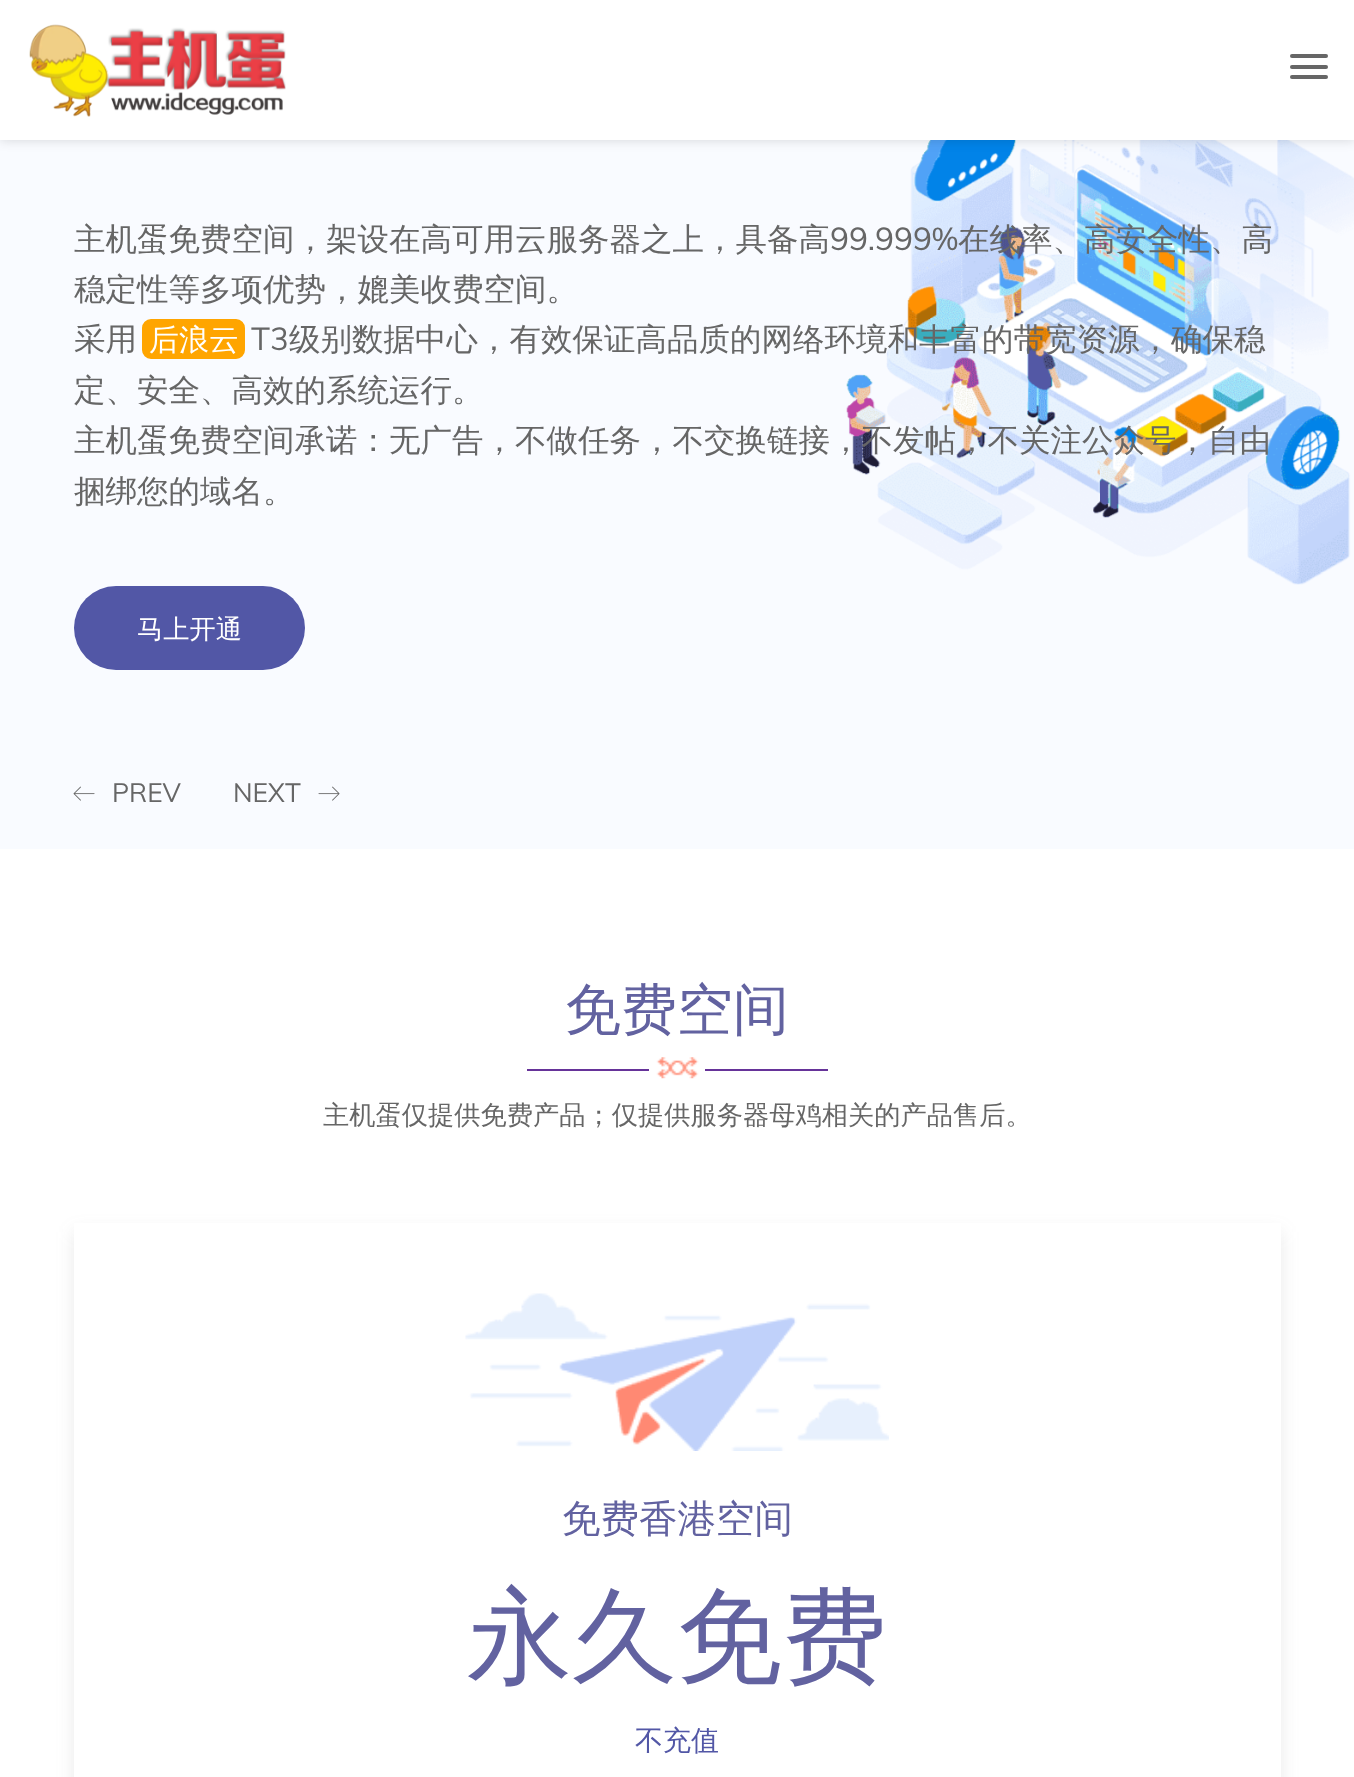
<!DOCTYPE html>
<meta charset="utf-8">
<style>body { margin: 0 } canvas { display: block }</style>
<canvas id="canvas" width="1354" height="1777"></canvas>
<script type="module">
  const canvas = document.getElementById("canvas");
  const ctx = canvas.getContext("2d");
  ctx.miterLimit = 4;
  ctx.fontKerning = "normal";
  async function loadImage(src) {
    const img = new Image();
    img.src = src;
    await img.decode();
    return img;
  }

  ctx.fillStyle = "#ffffff";
  ctx.fillRect(0, 0, 1354, 1777);
  ctx.fillStyle = "#f9fbff";
  ctx.fillRect(0, 140, 1354, 709);
  ctx.drawImage(await loadImage("img2.png"), 846, 140, 508, 445);
  ctx.fillStyle = "rgba(0, 0, 0, 0.15)";
  ctx.filter = "blur(6px)";
  ctx.beginPath();
  ctx.rect(0, 0, 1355, 140);
  ctx.fill();
  ctx.filter = "none";
  ctx.fillStyle = "#ffffff";
  ctx.fillRect(0, 0, 1354, 140);
  ctx.drawImage(await loadImage("img1.png"), 29, 24, 257, 93);
  ctx.fillStyle = "#666666";
  ctx.beginPath();
  ctx.roundRect(1290, 54, 19, 4, [2, 0, 0, 2]);
  ctx.fill();
  ctx.beginPath();
  ctx.roundRect(1309, 54, 19, 4, [0, 2, 2, 0]);
  ctx.fill();
  ctx.beginPath();
  ctx.roundRect(1290, 65, 19, 4, [2, 0, 0, 2]);
  ctx.fill();
  ctx.beginPath();
  ctx.roundRect(1309, 65, 19, 4, [0, 2, 2, 0]);
  ctx.fill();
  ctx.beginPath();
  ctx.roundRect(1290, 75, 19, 4, [2, 0, 0, 2]);
  ctx.fill();
  ctx.beginPath();
  ctx.roundRect(1309, 75, 19, 4, [0, 2, 2, 0]);
  ctx.fill();
  ctx.font = "500 31.5px WenQuanYi Zen Hei";
  ctx.fillText("主机蛋免费空间，架设在高可用云服务器之上，具备高", 74, 250);
  ctx.font = "31.5px Muli";
  ctx.fillText("99.999%", 830, 250);
  ctx.font = "500 31.5px WenQuanYi Zen Hei";
  ctx.fillText("在线率、高安全性、高", 958, 250);
  ctx.fillText("稳定性等多项优势，媲美收费空间。", 74, 300);
  ctx.fillText("采用", 74, 350);
  ctx.fillStyle = "#ffa500";
  ctx.beginPath();
  ctx.roundRect(143, 320, 101, 38, 8);
  ctx.fill();
  ctx.strokeStyle = "#ffa500";
  ctx.lineWidth = 2;
  ctx.stroke();
  ctx.font = "500 30px WenQuanYi Zen Hei";
  ctx.fillStyle = "#ffffff";
  ctx.fillText("后浪云", 149, 350);
  ctx.font = "31.5px Muli";
  ctx.fillStyle = "#666666";
  ctx.fillText("T3", 251, 350);
  ctx.font = "500 31.5px WenQuanYi Zen Hei";
  ctx.fillText("级别数据中心，有效保证高品质的网络环境和丰富的带宽资源，确保稳", 289, 350);
  ctx.fillText("定、安全、高效的系统运行。", 74, 401);
  ctx.fillText("主机蛋免费空间承诺：无广告，不做任务，不交换链接，不发帖，不关注公众号，自由", 74, 451);
  ctx.fillText("捆绑您的域名。", 74, 502);
  ctx.fillStyle = "#5257a6";
  ctx.beginPath();
  ctx.roundRect(74, 586, 231, 84, 42);
  ctx.fill();
  ctx.font = "500 26.25px WenQuanYi Zen Hei";
  ctx.fillStyle = "#ffffff";
  ctx.fillText("马上开通", 137, 638);
  ctx.drawImage(await loadImage("img3.png"), 73, 786, 22, 15);
  ctx.font = "26.25px Muli";
  ctx.fillStyle = "#666666";
  ctx.fillText("PREV", 112, 802);
  ctx.fillText("NEXT", 233, 802);
  ctx.drawImage(await loadImage("img4.png"), 318, 786, 22, 15);
  ctx.font = "500 56px WenQuanYi Zen Hei";
  ctx.fillStyle = "#6262a0";
  ctx.fillText("免费空间", 565, 1029);
  ctx.fillStyle = "#663399";
  ctx.fillRect(527, 1069, 122, 2);
  ctx.drawImage(await loadImage("img5.png"), 656, 1057, 43, 22);
  ctx.fillRect(705, 1069, 123, 2);
  ctx.font = "500 26.25px WenQuanYi Zen Hei";
  ctx.fillStyle = "#666666";
  ctx.fillText("主机蛋仅提供免费产品；仅提供服务器母鸡相关的产品售后。", 323, 1124);
  ctx.save();
  ctx.beginPath();
  ctx.moveTo(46, 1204);
  ctx.lineTo(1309, 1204);
  ctx.lineTo(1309, 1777);
  ctx.lineTo(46, 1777);
  ctx.closePath();
  ctx.moveTo(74, 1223);
  ctx.lineTo(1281, 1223);
  ctx.lineTo(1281, 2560);
  ctx.lineTo(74, 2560);
  ctx.closePath();
  ctx.clip("evenodd");
  ctx.fillStyle = "rgba(106, 106, 106, 0.15)";
  ctx.filter = "blur(9px)";
  ctx.beginPath();
  ctx.rect(74, 1232, 1207, 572);
  ctx.fill();
  ctx.filter = "none";
  ctx.restore();
  ctx.drawImage(await loadImage("img6.png"), 465, 1293, 424, 158);
  ctx.font = "500 38.5px WenQuanYi Zen Hei";
  ctx.fillStyle = "#6262a0";
  ctx.fillText("免费香港空间", 562, 1532);
  ctx.font = "500 105px WenQuanYi Zen Hei";
  ctx.fillText("永久免费", 467, 1673);
  ctx.font = "500 28px WenQuanYi Zen Hei";
  ctx.fillStyle = "#5257a6";
  ctx.fillText("不充值", 635, 1750);
</script>
